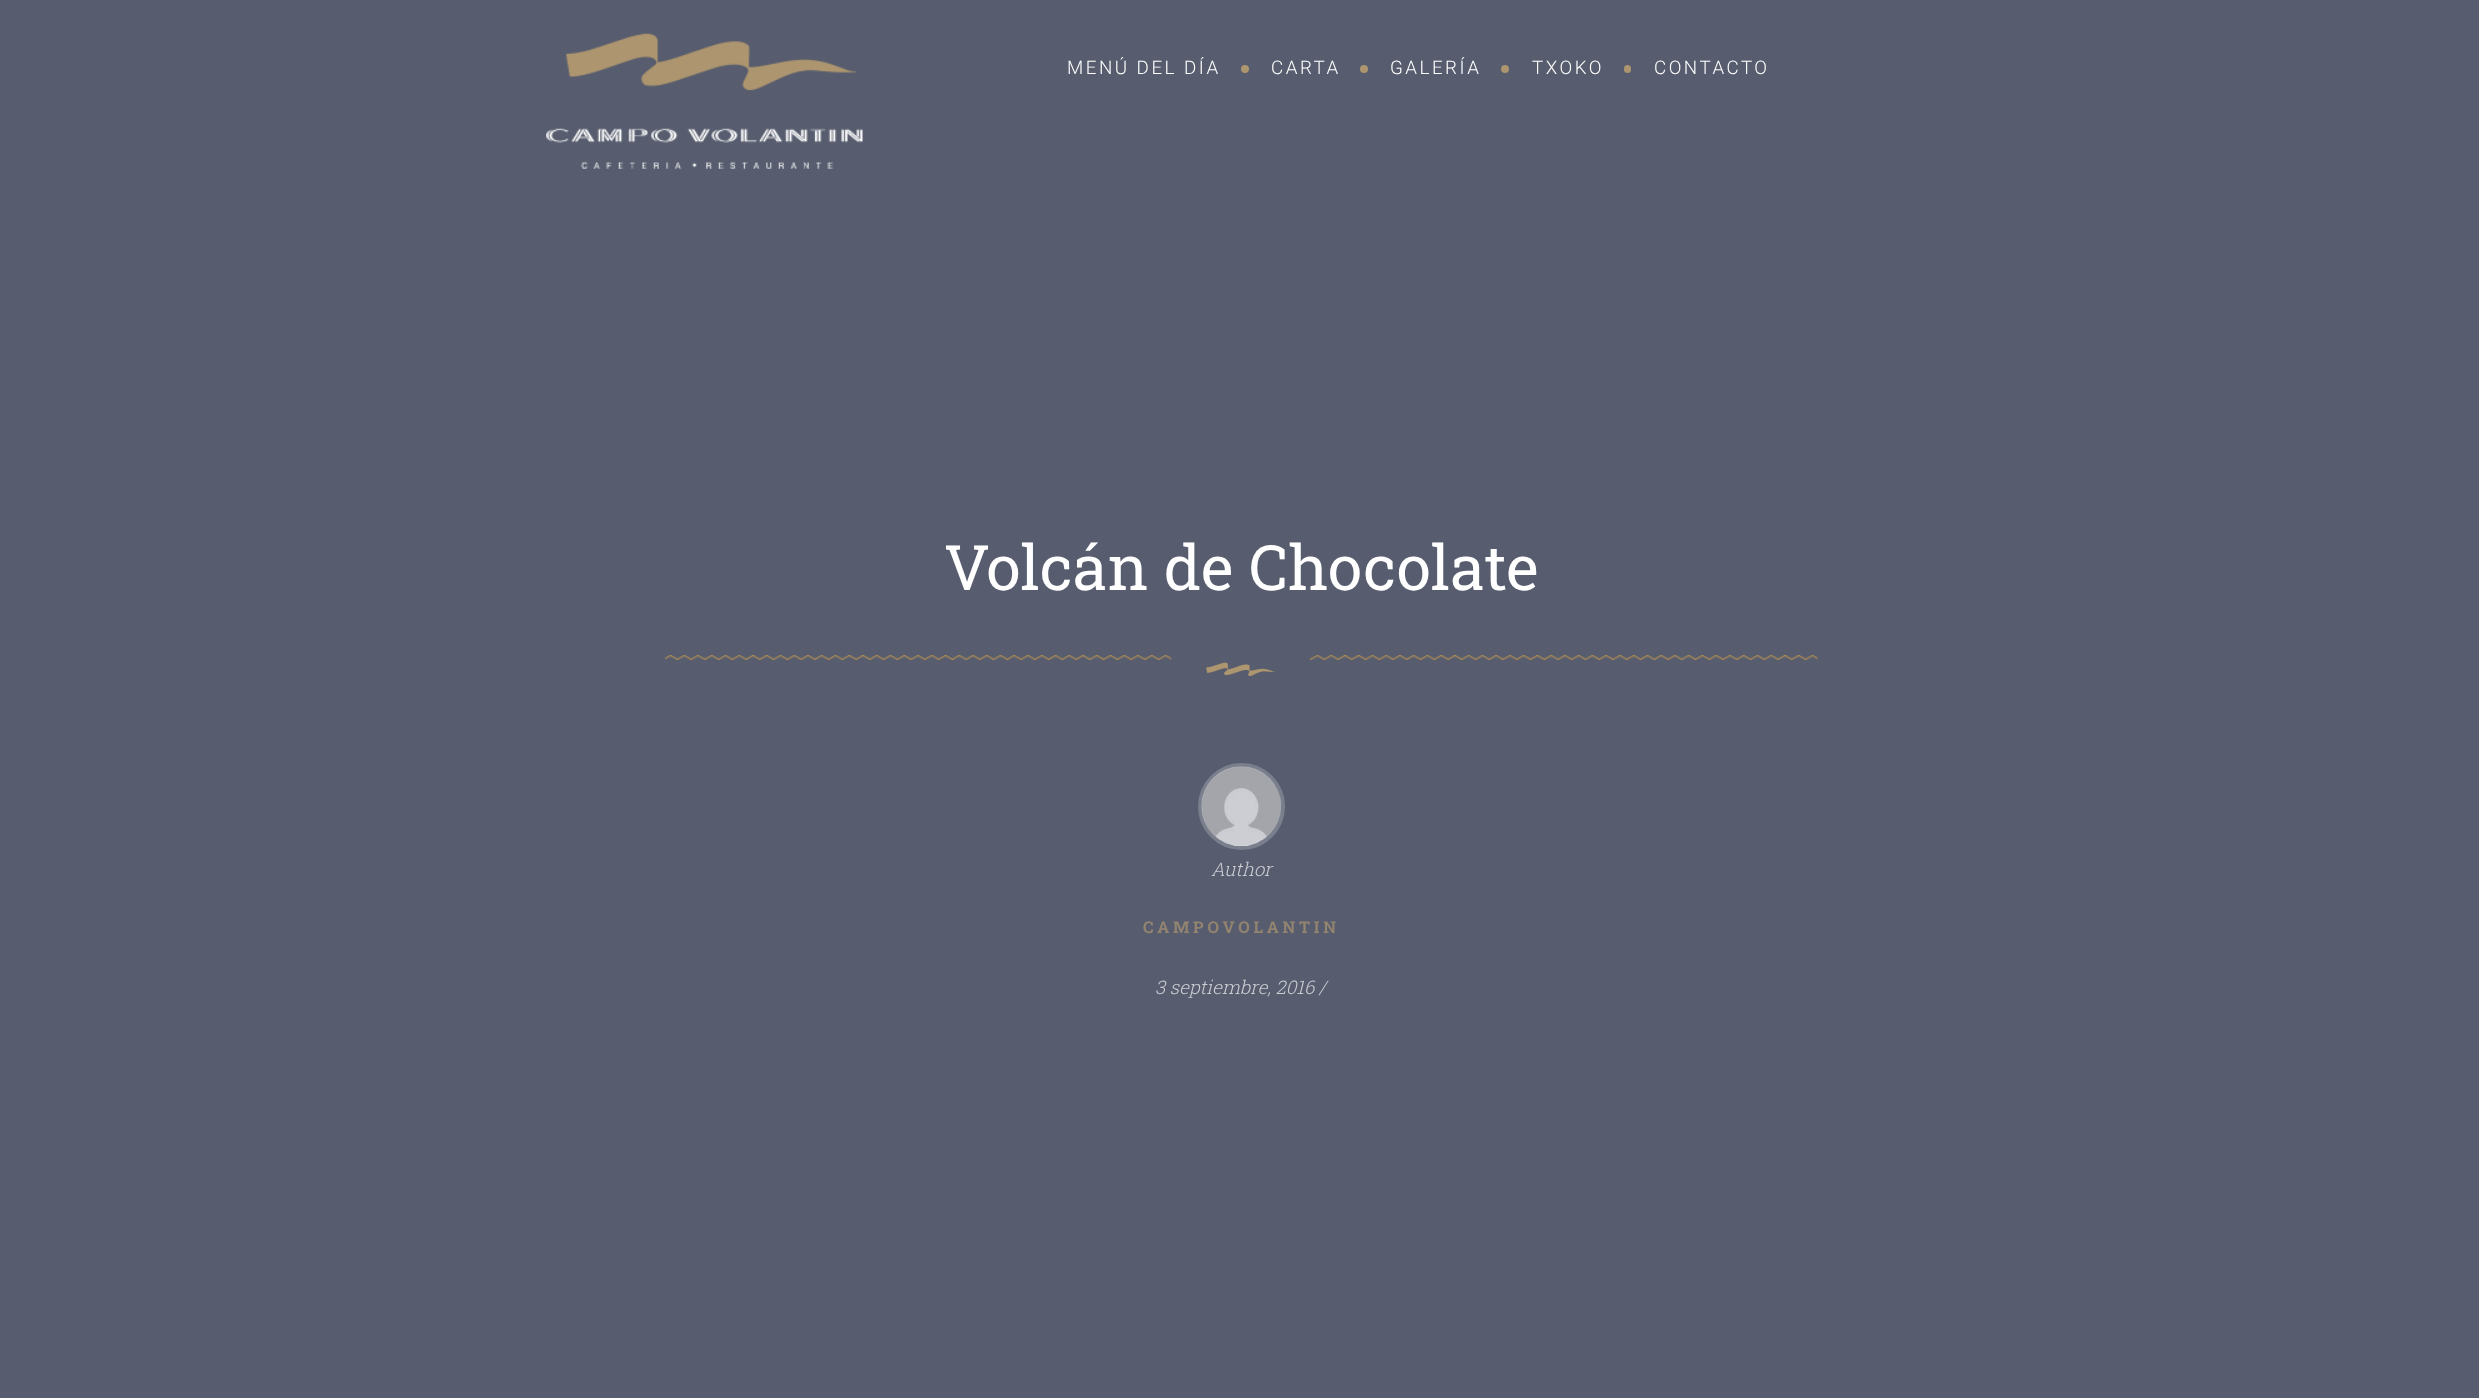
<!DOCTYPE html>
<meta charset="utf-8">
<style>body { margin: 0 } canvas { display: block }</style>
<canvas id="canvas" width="2479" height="1398"></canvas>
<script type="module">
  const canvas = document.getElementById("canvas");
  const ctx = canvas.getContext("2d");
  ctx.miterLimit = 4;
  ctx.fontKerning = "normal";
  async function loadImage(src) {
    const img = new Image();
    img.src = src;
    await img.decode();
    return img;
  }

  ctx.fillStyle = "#575d6e";
  ctx.fillRect(0, 0, 2479, 1398);
  ctx.drawImage(await loadImage("img1.png"), 546, 33, 317, 136);
  ctx.letterSpacing = "2.5px";
  ctx.font = "300 18.75px Roboto";
  ctx.fillStyle = "#ffffff";
  ctx.fillText("MENÚ DEL DÍA", 1067, 74);
  ctx.fillStyle = "#ad956f";
  ctx.beginPath();
  ctx.arc(1245, 69, 4, 0, Math.PI * 2);
  ctx.fill();
  ctx.fillStyle = "#ffffff";
  ctx.fillText("CARTA", 1271, 74);
  ctx.fillStyle = "#ad956f";
  ctx.beginPath();
  ctx.arc(1364, 69, 4, 0, Math.PI * 2);
  ctx.fill();
  ctx.fillStyle = "#ffffff";
  ctx.fillText("GALERÍA", 1390, 74);
  ctx.fillStyle = "#ad956f";
  ctx.beginPath();
  ctx.arc(1505, 69, 4, 0, Math.PI * 2);
  ctx.fill();
  ctx.fillStyle = "#ffffff";
  ctx.fillText("TXOKO", 1532, 74);
  ctx.fillStyle = "#ad956f";
  ctx.beginPath();
  ctx.roundRect(1624, 65, 7, 8, 3.5);
  ctx.fill();
  ctx.fillStyle = "#ffffff";
  ctx.fillText("CONTACTO", 1654, 74);
  ctx.letterSpacing = "0px";
  ctx.font = "62.5px Roboto Slab";
  ctx.fillText("Volcán de Chocolate", 944, 590);
  ctx.drawImage(await loadImage("img2.png"), 665, 655, 507, 5);
  ctx.drawImage(await loadImage("img3.png"), 1310, 655, 508, 5);
  ctx.drawImage(await loadImage("img4.png"), 1206, 662, 69, 14);
  ctx.beginPath();
  ctx.arc(1241.5, 806.5, 41.5, 0, Math.PI * 2);
  ctx.strokeStyle = "#7a7f8d";
  ctx.lineWidth = 4;
  ctx.stroke();
  ctx.drawImage(await loadImage("img5.png"), 1201, 766, 80, 81);
  ctx.font = "italic 300 18.75px Roboto Slab";
  ctx.fillStyle = "#cdced4";
  ctx.fillText("Author", 1211, 876);
  ctx.letterSpacing = "3.75px";
  ctx.font = "bold 16.25px Roboto Slab";
  ctx.fillStyle = "#93846f";
  ctx.fillText("CAMPOVOLANTIN", 1143, 933);
  ctx.letterSpacing = "0px";
  ctx.font = "italic 300 18.75px Roboto Slab";
  ctx.fillStyle = "#cdced4";
  ctx.fillText("3 septiembre, 2016 /", 1155, 994);
</script>
